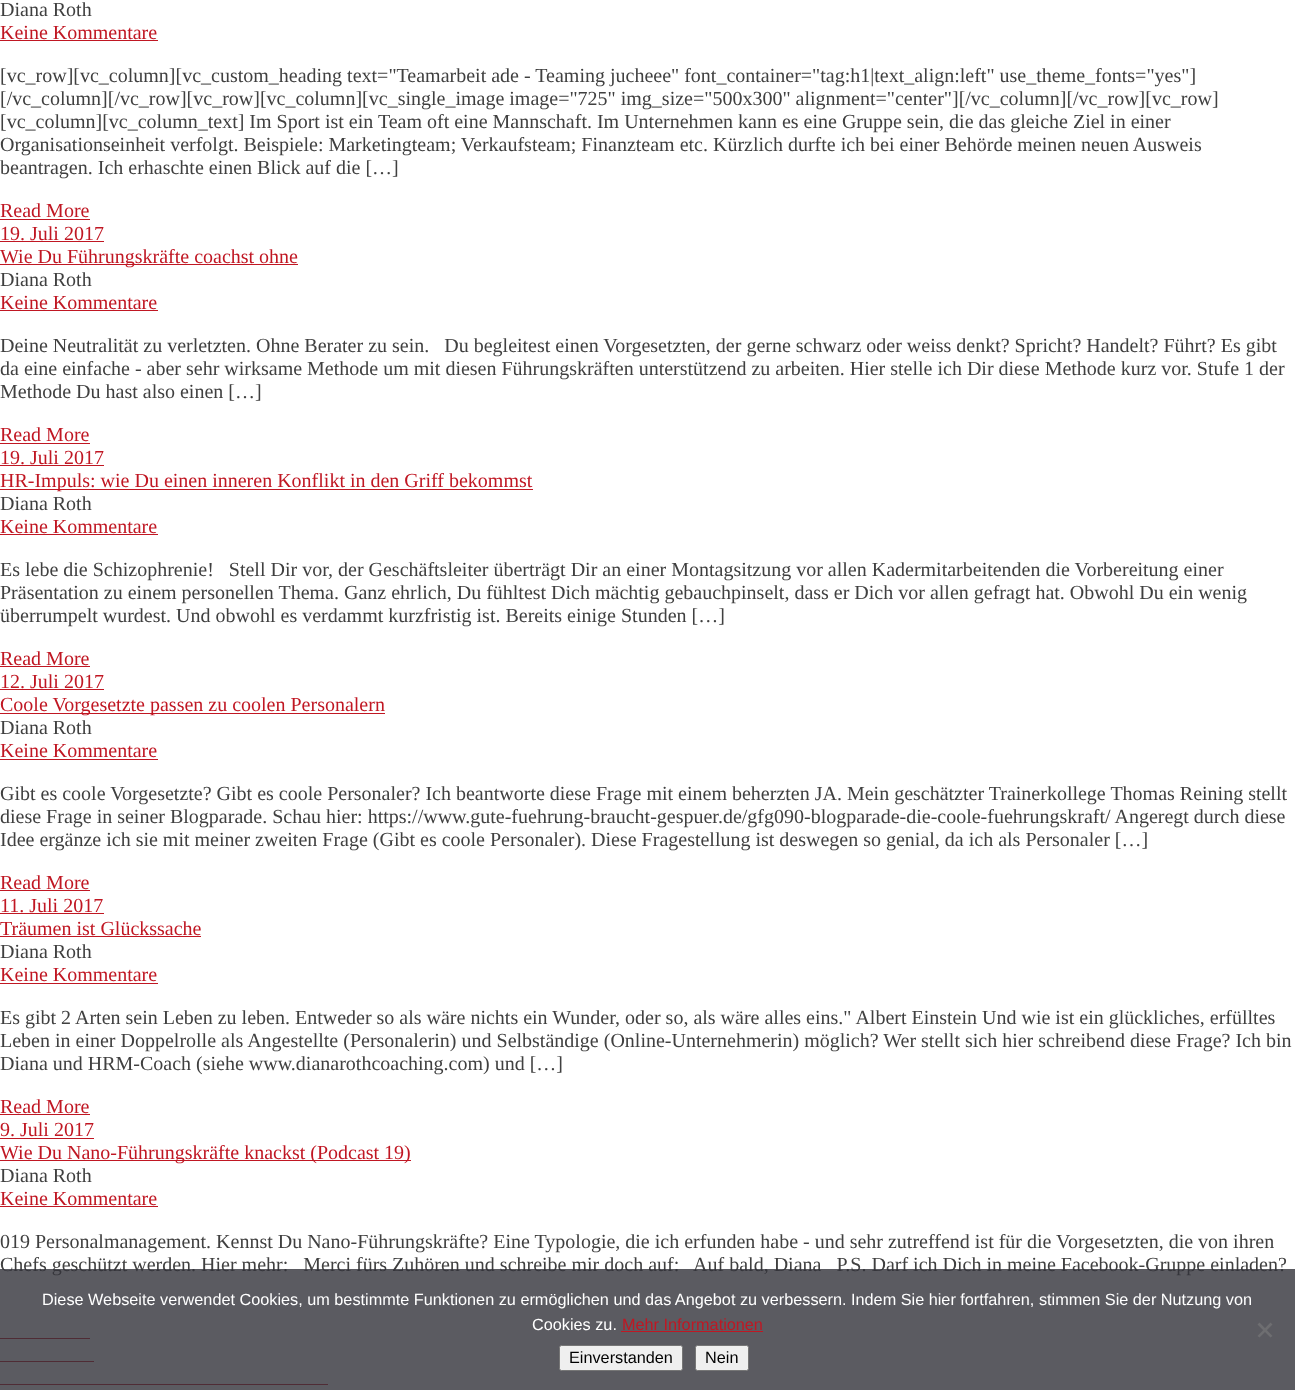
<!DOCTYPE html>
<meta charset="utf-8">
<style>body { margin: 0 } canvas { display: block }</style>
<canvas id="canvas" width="1295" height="1390"></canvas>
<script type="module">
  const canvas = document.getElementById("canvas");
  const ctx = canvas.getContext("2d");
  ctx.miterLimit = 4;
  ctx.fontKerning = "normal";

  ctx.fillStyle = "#ffffff";
  ctx.fillRect(0, 0, 1295, 1390);
  ctx.font = "20px Liberation Serif";
  ctx.fillStyle = "#404040";
  ctx.fillText("Diana Roth", 0, 16);
  ctx.fillStyle = "#c01723";
  ctx.fillText("Keine Kommentare", 0, 39);
  ctx.fillRect(0, 40, 158, 1);
  ctx.fillStyle = "#404040";
  ctx.fillText("[vc_row][vc_column][vc_custom_heading text=\"Teamarbeit ade - Teaming jucheee\" font_container=\"tag:h1|text_align:left\" use_theme_fonts=\"yes\"]", 0, 82);
  ctx.fillText("[/vc_column][/vc_row][vc_row][vc_column][vc_single_image image=\"725\" img_size=\"500x300\" alignment=\"center\"][/vc_column][/vc_row][vc_row]", 0, 105);
  ctx.fillText("[vc_column][vc_column_text] Im Sport ist ein Team oft eine Mannschaft. Im Unternehmen kann es eine Gruppe sein, die das gleiche Ziel in einer", 0, 128);
  ctx.fillText("Organisationseinheit verfolgt. Beispiele: Marketingteam; Verkaufsteam; Finanzteam etc. Kürzlich durfte ich bei einer Behörde meinen neuen Ausweis", 0, 151);
  ctx.fillText("beantragen. Ich erhaschte einen Blick auf die […]", 0, 174);
  ctx.fillStyle = "#c01723";
  ctx.fillText("Read More", 0, 217);
  ctx.fillRect(0, 219, 90, 1);
  ctx.fillText("19. Juli 2017", 0, 240);
  ctx.fillRect(0, 241, 104, 1);
  ctx.fillRect(0, 264, 298, 1);
  ctx.fillText("Wie Du Führungskräfte coachst ohne", 0, 263);
  ctx.fillStyle = "#404040";
  ctx.fillText("Diana Roth", 0, 286);
  ctx.fillStyle = "#c01723";
  ctx.fillText("Keine Kommentare", 0, 309);
  ctx.fillRect(0, 310, 158, 1);
  ctx.fillStyle = "#404040";
  ctx.fillText("Deine Neutralität zu verletzten. Ohne Berater zu sein.   Du begleitest einen Vorgesetzten, der gerne schwarz oder weiss denkt? Spricht? Handelt? Führt? Es gibt", 0, 352);
  ctx.fillText("da eine einfache - aber sehr wirksame Methode um mit diesen Führungskräften unterstützend zu arbeiten. Hier stelle ich Dir diese Methode kurz vor. Stufe 1 der", 0, 375);
  ctx.fillText("Methode Du hast also einen […]", 0, 398);
  ctx.fillStyle = "#c01723";
  ctx.fillText("Read More", 0, 441);
  ctx.fillRect(0, 443, 90, 1);
  ctx.fillText("19. Juli 2017", 0, 464);
  ctx.fillRect(0, 465, 104, 1);
  ctx.fillRect(0, 489, 533, 1);
  ctx.fillText("HR-Impuls: wie Du einen inneren Konflikt in den Griff bekommst", 0, 487);
  ctx.fillStyle = "#404040";
  ctx.fillText("Diana Roth", 0, 510);
  ctx.fillStyle = "#c01723";
  ctx.fillText("Keine Kommentare", 0, 533);
  ctx.fillRect(0, 534, 158, 1);
  ctx.fillStyle = "#404040";
  ctx.fillText("Es lebe die Schizophrenie!   Stell Dir vor, der Geschäftsleiter überträgt Dir an einer Montagsitzung vor allen Kadermitarbeitenden die Vorbereitung einer", 0, 576);
  ctx.fillText("Präsentation zu einem personellen Thema. Ganz ehrlich, Du fühltest Dich mächtig gebauchpinselt, dass er Dich vor allen gefragt hat. Obwohl Du ein wenig", 0, 599);
  ctx.fillText("überrumpelt wurdest. Und obwohl es verdammt kurzfristig ist. Bereits einige Stunden […]", 0, 622);
  ctx.fillStyle = "#c01723";
  ctx.fillText("Read More", 0, 665);
  ctx.fillRect(0, 666, 90, 1);
  ctx.fillText("12. Juli 2017", 0, 688);
  ctx.fillRect(0, 689, 104, 1);
  ctx.fillRect(0, 713, 385, 1);
  ctx.fillText("Coole Vorgesetzte passen zu coolen Personalern", 0, 711);
  ctx.fillStyle = "#404040";
  ctx.fillText("Diana Roth", 0, 734);
  ctx.fillStyle = "#c01723";
  ctx.fillText("Keine Kommentare", 0, 757);
  ctx.fillRect(0, 759, 158, 1);
  ctx.fillStyle = "#404040";
  ctx.fillText("Gibt es coole Vorgesetzte? Gibt es coole Personaler? Ich beantworte diese Frage mit einem beherzten JA. Mein geschätzter Trainerkollege Thomas Reining stellt", 0, 800);
  ctx.fillText("diese Frage in seiner Blogparade. Schau hier: https://www.gute-fuehrung-braucht-gespuer.de/gfg090-blogparade-die-coole-fuehrungskraft/ Angeregt durch diese", 0, 823);
  ctx.fillText("Idee ergänze ich sie mit meiner zweiten Frage (Gibt es coole Personaler). Diese Fragestellung ist deswegen so genial, da ich als Personaler […]", 0, 846);
  ctx.fillStyle = "#c01723";
  ctx.fillText("Read More", 0, 889);
  ctx.fillRect(0, 890, 90, 1);
  ctx.fillText("11. Juli 2017", 0, 912);
  ctx.fillRect(0, 913, 104, 1);
  ctx.fillText("Träumen ist Glückssache", 0, 935);
  ctx.fillRect(0, 936, 201, 1);
  ctx.fillStyle = "#404040";
  ctx.fillText("Diana Roth", 0, 958);
  ctx.fillStyle = "#c01723";
  ctx.fillText("Keine Kommentare", 0, 981);
  ctx.fillRect(0, 983, 158, 1);
  ctx.fillStyle = "#404040";
  ctx.fillText("Es gibt 2 Arten sein Leben zu leben. Entweder so als wäre nichts ein Wunder, oder so, als wäre alles eins.\" Albert Einstein Und wie ist ein glückliches, erfülltes", 0, 1024);
  ctx.fillText("Leben in einer Doppelrolle als Angestellte (Personalerin) und Selbständige (Online-Unternehmerin) möglich? Wer stellt sich hier schreibend diese Frage? Ich bin", 0, 1047);
  ctx.fillText("Diana und HRM-Coach (siehe www.dianarothcoaching.com) und […]", 0, 1070);
  ctx.fillStyle = "#c01723";
  ctx.fillText("Read More", 0, 1113);
  ctx.fillRect(0, 1114, 90, 1);
  ctx.fillText("9. Juli 2017", 0, 1136);
  ctx.fillRect(0, 1138, 94, 1);
  ctx.fillRect(0, 1160, 411, 1);
  ctx.fillText("Wie Du Nano-Führungskräfte knackst (Podcast 19)", 0, 1159);
  ctx.fillStyle = "#404040";
  ctx.fillText("Diana Roth", 0, 1182);
  ctx.fillStyle = "#c01723";
  ctx.fillText("Keine Kommentare", 0, 1205);
  ctx.fillRect(0, 1206, 158, 1);
  ctx.fillStyle = "#404040";
  ctx.fillText("019 Personalmanagement. Kennst Du Nano-Führungskräfte? Eine Typologie, die ich erfunden habe - und sehr zutreffend ist für die Vorgesetzten, die von ihren", 0, 1248);
  ctx.fillText("Chefs geschützt werden. Hier mehr:   Merci fürs Zuhören und schreibe mir doch auf:   Auf bald, Diana   P.S. Darf ich Dich in meine Facebook-Gruppe einladen?", 0, 1271);
  ctx.fillStyle = "#c01723";
  ctx.fillRect(0, 1338, 90, 1);
  ctx.fillRect(0, 1361, 94, 1);
  ctx.fillRect(0, 1384, 328, 1);
  ctx.fillStyle = "rgba(50, 50, 58, 0.8)";
  ctx.fillRect(0, 1269, 1295, 121);
  ctx.font = "16.25px Liberation Sans";
  ctx.fillStyle = "#ffffff";
  ctx.fillText("Diese Webseite verwendet Cookies, um bestimmte Funktionen zu ermöglichen und das Angebot zu verbessern. Indem Sie hier fortfahren, stimmen Sie der Nutzung von", 42, 1305);
  ctx.fillText("Cookies zu.", 532, 1330);
  ctx.fillStyle = "#c01723";
  ctx.fillText("Mehr Informationen", 622, 1330);
  ctx.fillRect(621, 1331, 142, 1);
  ctx.fillStyle = "#6e6e71";
  ctx.beginPath();
  ctx.moveTo(1270.5, 1322.5);
  ctx.lineTo(1272.5, 1324.5);
  ctx.lineTo(1259.5, 1337.5);
  ctx.lineTo(1257.5, 1336);
  ctx.closePath();
  ctx.fill();
  ctx.beginPath();
  ctx.moveTo(1257.5, 1324.5);
  ctx.lineTo(1259.5, 1322.5);
  ctx.lineTo(1272.5, 1336);
  ctx.lineTo(1270.5, 1337.5);
  ctx.closePath();
  ctx.fill();
  ctx.fillStyle = "#efefef";
  ctx.beginPath();
  ctx.roundRect(559.5, 1345.5, 123, 25, 2);
  ctx.fill();
  ctx.strokeStyle = "#767676";
  ctx.stroke();
  ctx.fillStyle = "#000000";
  ctx.fillText("Einverstanden", 569, 1363);
  ctx.fillStyle = "#efefef";
  ctx.beginPath();
  ctx.roundRect(695.5, 1345.5, 53, 25, 2);
  ctx.fill();
  ctx.stroke();
  ctx.fillStyle = "#000000";
  ctx.fillText("Nein", 705, 1363);
</script>
